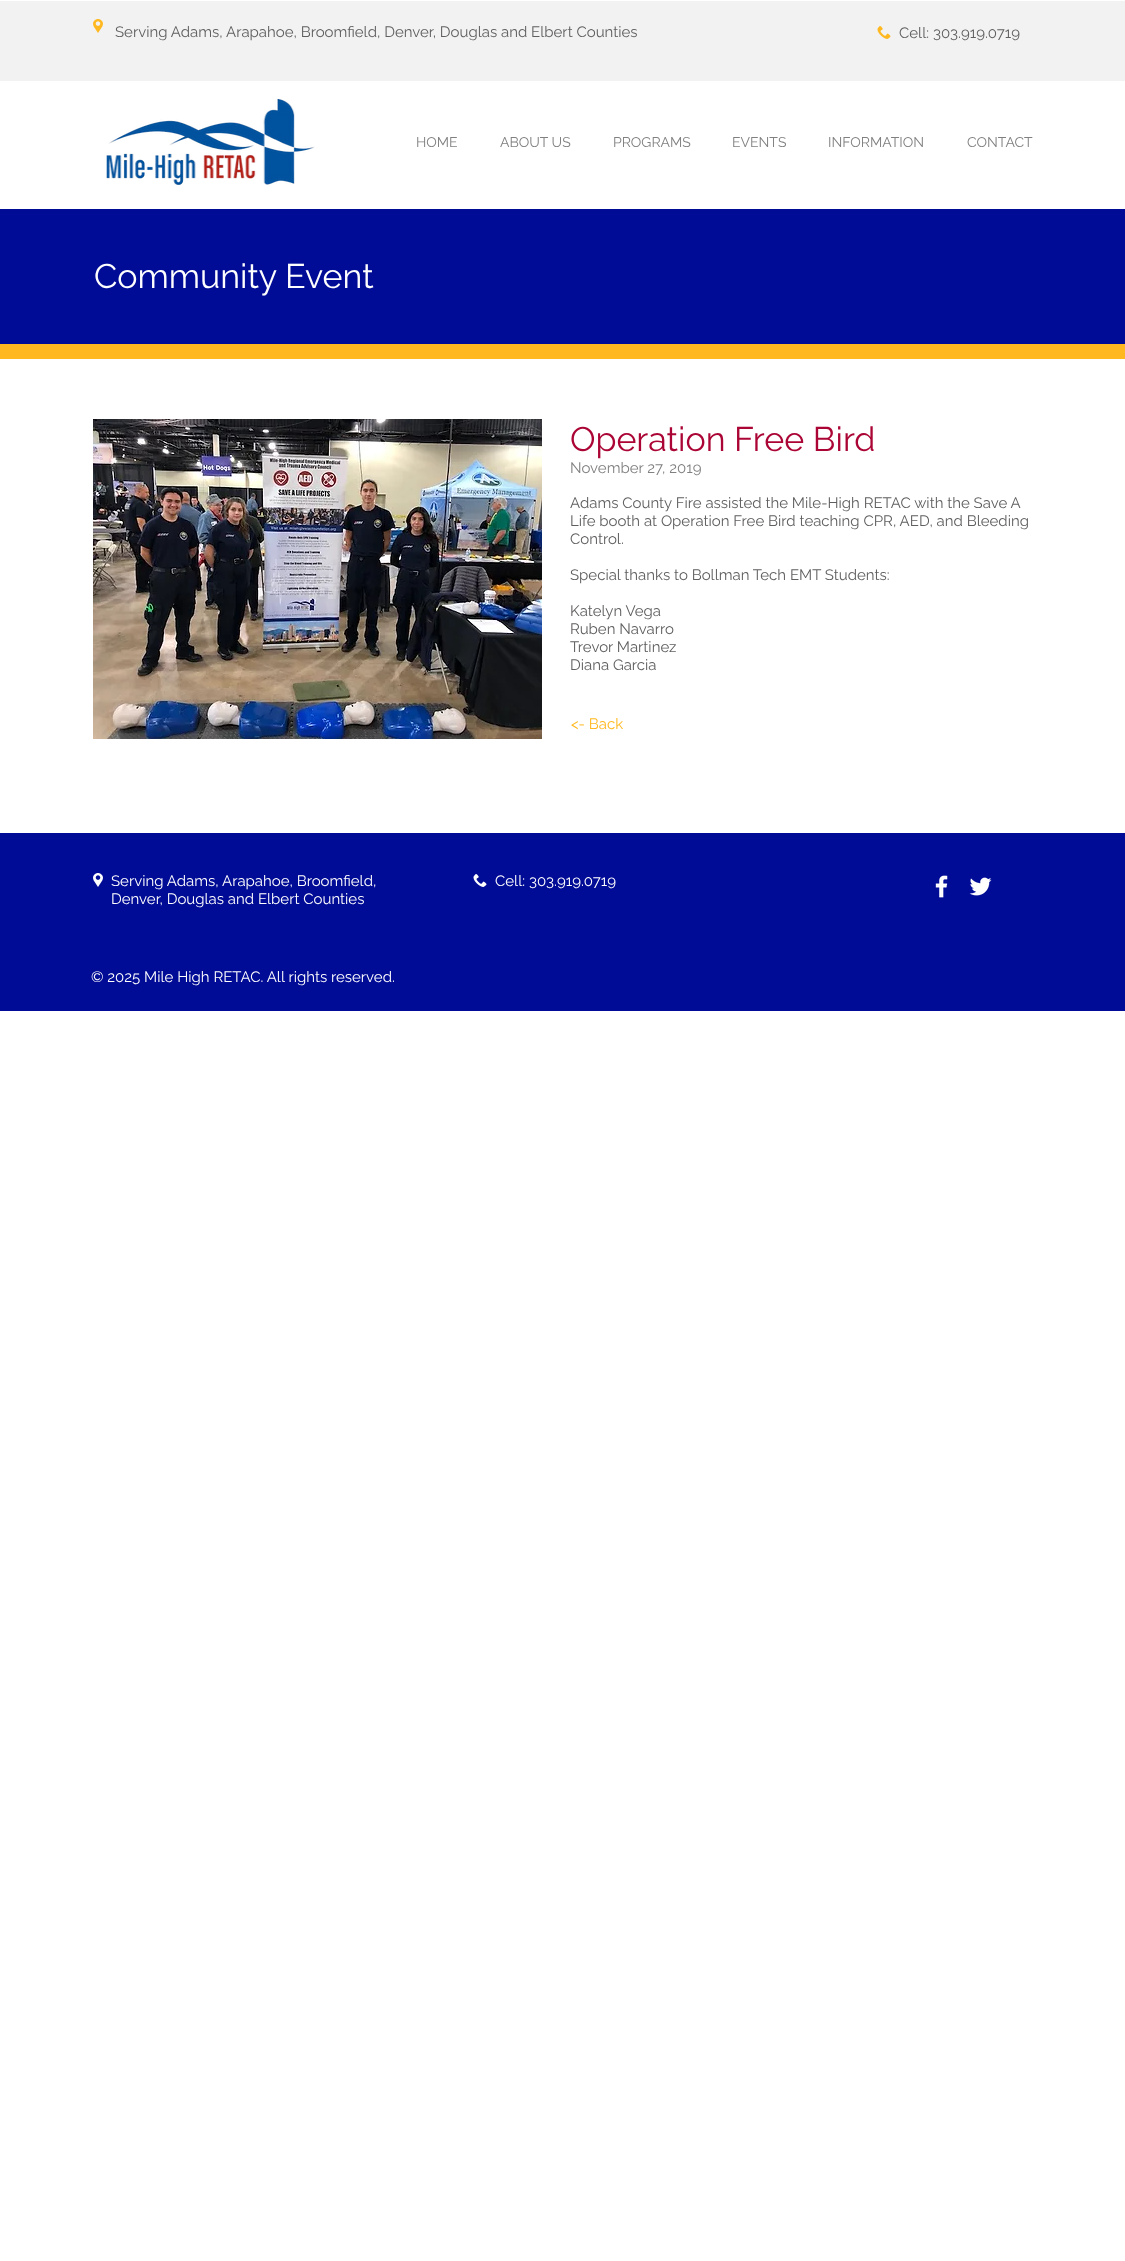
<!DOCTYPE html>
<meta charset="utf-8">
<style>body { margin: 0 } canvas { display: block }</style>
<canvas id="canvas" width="1125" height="2261"></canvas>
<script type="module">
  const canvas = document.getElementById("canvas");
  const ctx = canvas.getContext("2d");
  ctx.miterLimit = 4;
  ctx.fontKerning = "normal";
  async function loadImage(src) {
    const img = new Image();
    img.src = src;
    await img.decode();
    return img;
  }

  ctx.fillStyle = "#ffffff";
  ctx.fillRect(0, 0, 1125, 2261);
  ctx.fillStyle = "#f2f2f2";
  ctx.fillRect(0, 1, 1125, 80);
  ctx.drawImage(await loadImage("img1.png"), 93, 19, 10, 14);
  ctx.font = "15px Raleway";
  ctx.fillStyle = "#605e5e";
  ctx.fillText("Serving Adams, Arapahoe, Broomfield, Denver, Douglas and Elbert Counties", 115, 37);
  ctx.drawImage(await loadImage("img2.png"), 877, 26, 14, 13);
  ctx.fillText("Cell: 303.919.0719", 899, 38);
  ctx.drawImage(await loadImage("img3.png"), 106, 99, 209, 86);
  ctx.font = "14px Raleway";
  ctx.fillStyle = "#808080";
  ctx.fillText("HOME", 416, 147);
  ctx.fillText("ABOUT US", 500, 147);
  ctx.fillText("PROGRAMS", 613, 147);
  ctx.fillText("EVENTS", 732, 147);
  ctx.fillText("INFORMATION", 828, 147);
  ctx.fillText("CONTACT", 967, 147);
  ctx.fillStyle = "#000c95";
  ctx.fillRect(0, 209, 1125, 135);
  ctx.font = "34px Raleway";
  ctx.fillStyle = "#ffffff";
  ctx.fillText("Community Event", 94, 288);
  ctx.fillStyle = "#ffb81f";
  ctx.fillRect(0, 344, 1125, 15);
  ctx.drawImage(await loadImage("img4.png"), 93, 419, 449, 320);
  ctx.fillStyle = "#ab0535";
  ctx.fillText("Operation Free Bird", 570, 451);
  ctx.font = "15px Raleway";
  ctx.fillStyle = "#808080";
  ctx.fillText("November 27, 2019", 570, 473);
  ctx.fillStyle = "#605e5e";
  ctx.fillText("Adams County Fire assisted the Mile-High RETAC with the Save A", 570, 508);
  ctx.fillText("Life booth at Operation Free Bird teaching CPR, AED, and Bleeding", 570, 526);
  ctx.fillText("Control.", 570, 544);
  ctx.fillText("Special thanks to Bollman Tech EMT Students:", 570, 580);
  ctx.fillText("Katelyn Vega", 570, 616);
  ctx.fillText("Ruben Navarro", 570, 634);
  ctx.fillText("Trevor Martinez", 570, 652);
  ctx.fillText("Diana Garcia", 570, 670);
  ctx.fillStyle = "#ffb81f";
  ctx.fillText("<- Back", 571, 729);
  ctx.fillStyle = "#000c95";
  ctx.fillRect(0, 833, 1125, 178);
  ctx.drawImage(await loadImage("img5.png"), 93, 873, 10, 14);
  ctx.fillStyle = "#ffffff";
  ctx.fillText("Serving Adams, Arapahoe, Broomfield,", 111, 886);
  ctx.fillText("Denver, Douglas and Elbert Counties", 111, 904);
  ctx.drawImage(await loadImage("img6.png"), 473, 874, 14, 13);
  ctx.fillText("Cell: 303.919.0719", 495, 886);
  ctx.drawImage(await loadImage("img7.png"), 935, 875, 13, 23);
  ctx.drawImage(await loadImage("img8.png"), 969, 877, 23, 19);
  ctx.fillText("© 2025 Mile High RETAC. All rights reserved.", 91, 982);
</script>
